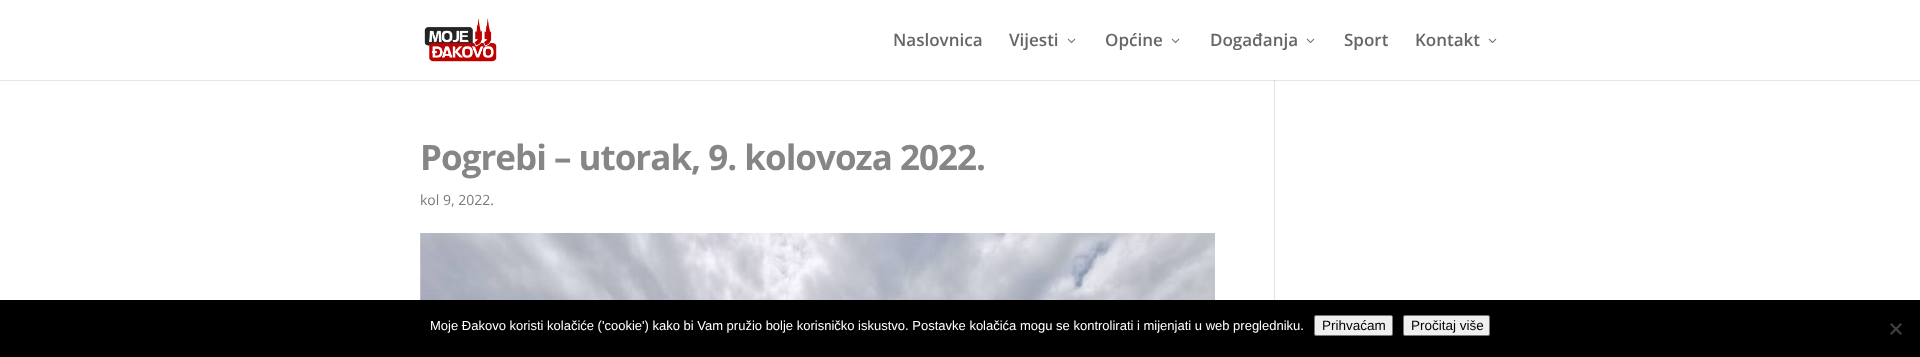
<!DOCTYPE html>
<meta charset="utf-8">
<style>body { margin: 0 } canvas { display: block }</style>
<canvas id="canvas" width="1920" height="357"></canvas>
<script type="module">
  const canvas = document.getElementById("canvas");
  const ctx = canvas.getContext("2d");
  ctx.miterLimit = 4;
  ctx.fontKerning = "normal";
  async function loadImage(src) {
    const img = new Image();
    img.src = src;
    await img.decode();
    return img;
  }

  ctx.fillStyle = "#ffffff";
  ctx.fillRect(0, 0, 1920, 357);
  ctx.fillStyle = "#e6e6e6";
  ctx.fillRect(0, 80, 1920, 1);
  ctx.drawImage(await loadImage("img1.png"), 424, 18, 73, 44);
  ctx.font = "600 17px Open Sans";
  ctx.fillStyle = "#666666";
  ctx.fillText("Naslovnica", 893, 46);
  ctx.fillText("Vijesti", 1009, 46);
  ctx.drawImage(await loadImage("img2.png"), 1067, 38, 9, 5);
  ctx.fillText("Općine", 1105, 46);
  ctx.drawImage(await loadImage("img2.png"), 1171, 38, 9, 5);
  ctx.fillText("Događanja", 1210, 46);
  ctx.drawImage(await loadImage("img2.png"), 1306, 38, 9, 5);
  ctx.fillText("Sport", 1344, 46);
  ctx.fillText("Kontakt", 1415, 46);
  ctx.drawImage(await loadImage("img2.png"), 1488, 38, 9, 5);
  ctx.letterSpacing = "-1px";
  ctx.font = "bold 35px Open Sans";
  ctx.fillStyle = "#868686";
  ctx.fillText("Pogrebi – utorak, 9. kolovoza 2022.", 420, 170);
  ctx.letterSpacing = "0px";
  ctx.font = "14px Open Sans";
  ctx.fillStyle = "#7b7b7b";
  ctx.fillText("kol 9, 2022.", 420, 205);
  ctx.drawImage(await loadImage("img3.png"), 420, 233, 795, 67);
  ctx.fillStyle = "#e2e2e2";
  ctx.fillRect(1274, 80, 1, 220);
  ctx.fillStyle = "#cbcbcb";
  ctx.fillRect(1274, 80, 1, 1);
  ctx.fillStyle = "#000000";
  ctx.fillRect(0, 300, 1920, 57);
  ctx.font = "13px Liberation Sans";
  ctx.fillStyle = "#ffffff";
  ctx.fillText("Moje Đakovo koristi kolačiće ('cookie') kako bi Vam pružio bolje korisničko iskustvo. Postavke kolačića mogu se kontrolirati i mijenjati u web pregledniku.", 430, 330);
  ctx.fillStyle = "#efefef";
  ctx.beginPath();
  ctx.roundRect(1314.5, 315.5, 78, 20, 1.5);
  ctx.fill();
  ctx.strokeStyle = "#767676";
  ctx.stroke();
  ctx.font = "13.5px Liberation Sans";
  ctx.fillStyle = "#000000";
  ctx.fillText("Prihvaćam", 1322, 330);
  ctx.fillStyle = "#efefef";
  ctx.beginPath();
  ctx.roundRect(1403.5, 315.5, 86, 20, 1.5);
  ctx.fill();
  ctx.stroke();
  ctx.fillStyle = "#000000";
  ctx.fillText("Pročitaj više", 1411, 330);
  ctx.fillStyle = "#404040";
  ctx.beginPath();
  ctx.moveTo(1900.5, 323);
  ctx.lineTo(1902, 324.5);
  ctx.lineTo(1891.5, 335);
  ctx.lineTo(1890, 333.5);
  ctx.closePath();
  ctx.fill();
  ctx.beginPath();
  ctx.moveTo(1890, 324.5);
  ctx.lineTo(1891.5, 323);
  ctx.lineTo(1902, 333.5);
  ctx.lineTo(1900.5, 335);
  ctx.closePath();
  ctx.fill();
</script>
